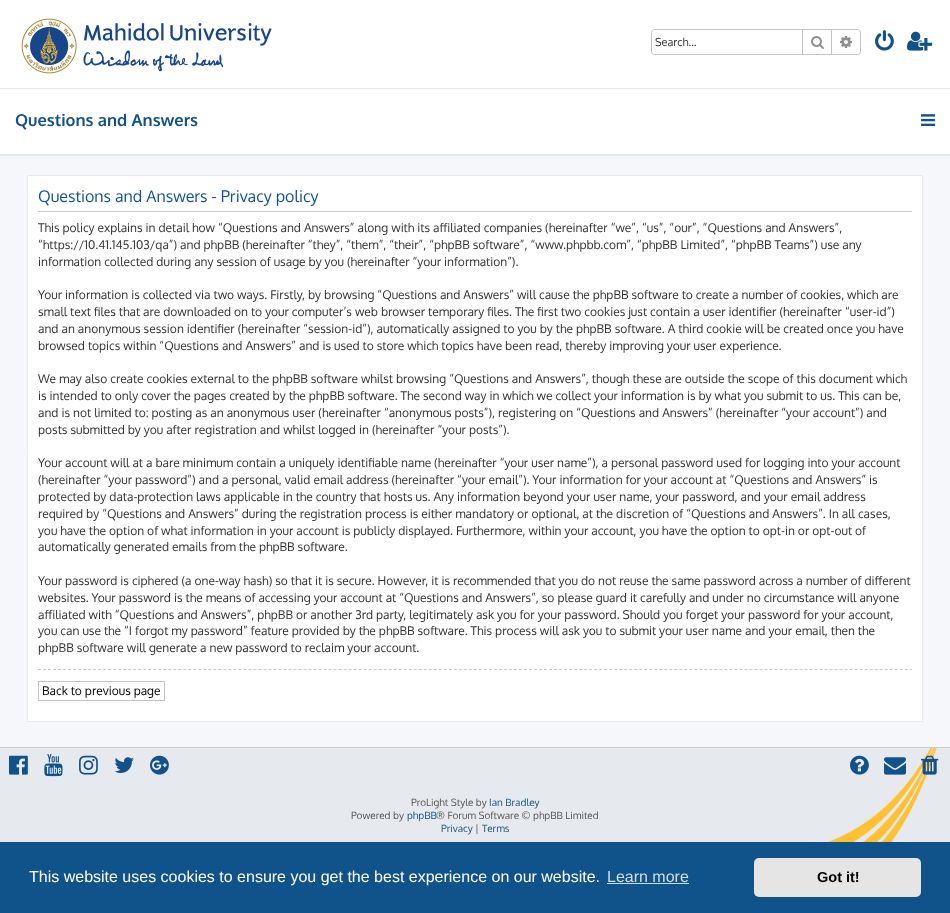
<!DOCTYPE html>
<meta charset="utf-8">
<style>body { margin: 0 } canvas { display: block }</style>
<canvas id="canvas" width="950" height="913"></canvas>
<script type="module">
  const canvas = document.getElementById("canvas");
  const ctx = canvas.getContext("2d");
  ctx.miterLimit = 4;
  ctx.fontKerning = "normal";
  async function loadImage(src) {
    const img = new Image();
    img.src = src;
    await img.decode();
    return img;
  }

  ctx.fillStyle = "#f5f7fa";
  ctx.fillRect(0, 0, 950, 913);
  ctx.fillStyle = "#ffffff";
  ctx.fillRect(0, 0, 950, 88);
  ctx.fillStyle = "#e6e9ed";
  ctx.fillRect(0, 88, 950, 1);
  ctx.drawImage(await loadImage("img1.png"), 21, 18, 251, 56);
  ctx.beginPath();
  ctx.roundRect(651.5, 29.5, 209, 25, 3.5);
  ctx.strokeStyle = "#c7c3bf";
  ctx.stroke();
  ctx.fillStyle = "#ffffff";
  ctx.beginPath();
  ctx.roundRect(652, 30, 150, 24, [4, 0, 0, 4]);
  ctx.fill();
  ctx.font = "11px Oxygen";
  ctx.fillStyle = "#333333";
  ctx.fillText("Search…", 655, 46);
  ctx.fillStyle = "#c7c3bf";
  ctx.fillRect(831, 30, 1, 24);
  ctx.fillRect(802, 30, 1, 24);
  ctx.drawImage(await loadImage("img2.png"), 811, 36, 13, 13);
  ctx.fillStyle = "#ffffff";
  ctx.beginPath();
  ctx.roundRect(832, 30, 28, 24, [0, 4, 4, 0]);
  ctx.fill();
  ctx.drawImage(await loadImage("img3.png"), 840, 36, 12, 12);
  ctx.drawImage(await loadImage("img4.png"), 875, 30, 19, 21);
  ctx.drawImage(await loadImage("img5.png"), 907, 31, 26, 20);
  ctx.fillRect(0, 89, 950, 65);
  ctx.fillStyle = "#e6e9ed";
  ctx.fillRect(0, 154, 950, 2);
  ctx.font = "bold 16.5px Oxygen";
  ctx.fillStyle = "#105289";
  ctx.fillText("Questions and Answers", 15, 126);
  ctx.drawImage(await loadImage("img6.png"), 921, 114, 15, 12);
  ctx.fillStyle = "#ffffff";
  ctx.beginPath();
  ctx.rect(27.5, 175.5, 895, 546);
  ctx.fill();
  ctx.strokeStyle = "#e6e9ed";
  ctx.stroke();
  ctx.fillStyle = "#cccccc";
  ctx.fillRect(38, 211, 874, 1);
  ctx.font = "16px Oxygen";
  ctx.fillStyle = "#115098";
  ctx.fillText("Questions and Answers - Privacy policy", 38, 202);
  ctx.font = "12px Oxygen";
  ctx.fillStyle = "#333333";
  ctx.fillText("This policy explains in detail how “Questions and Answers” along with its affiliated companies (hereinafter “we”, “us”, “our”, “Questions and Answers”,", 38, 232);
  ctx.fillText("“https://10.41.145.103/qa”) and phpBB (hereinafter “they”, “them”, “their”, “phpBB software”, “www.phpbb.com”, “phpBB Limited”, “phpBB Teams”) use any", 38, 249);
  ctx.fillText("information collected during any session of usage by you (hereinafter “your information”).", 38, 266);
  ctx.fillText("Your information is collected via two ways. Firstly, by browsing “Questions and Answers” will cause the phpBB software to create a number of cookies, which are", 38, 299);
  ctx.fillText("small text files that are downloaded on to your computer’s web browser temporary files. The first two cookies just contain a user identifier (hereinafter “user-id”)", 38, 316);
  ctx.fillText("and an anonymous session identifier (hereinafter “session-id”), automatically assigned to you by the phpBB software. A third cookie will be created once you have", 38, 333);
  ctx.fillText("browsed topics within “Questions and Answers” and is used to store which topics have been read, thereby improving your user experience.", 38, 350);
  ctx.fillText("We may also create cookies external to the phpBB software whilst browsing “Questions and Answers”, though these are outside the scope of this document which", 38, 383);
  ctx.fillText("is intended to only cover the pages created by the phpBB software. The second way in which we collect your information is by what you submit to us. This can be,", 38, 400);
  ctx.fillText("and is not limited to: posting as an anonymous user (hereinafter “anonymous posts”), registering on “Questions and Answers” (hereinafter “your account”) and", 38, 417);
  ctx.fillText("posts submitted by you after registration and whilst logged in (hereinafter “your posts”).", 38, 434);
  ctx.fillText("Your account will at a bare minimum contain a uniquely identifiable name (hereinafter “your user name”), a personal password used for logging into your account", 38, 467);
  ctx.fillText("(hereinafter “your password”) and a personal, valid email address (hereinafter “your email”). Your information for your account at “Questions and Answers” is", 38, 484);
  ctx.fillText("protected by data-protection laws applicable in the country that hosts us. Any information beyond your user name, your password, and your email address", 38, 501);
  ctx.fillText("required by “Questions and Answers” during the registration process is either mandatory or optional, at the discretion of “Questions and Answers”. In all cases,", 38, 518);
  ctx.fillText("you have the option of what information in your account is publicly displayed. Furthermore, within your account, you have the option to opt-in or opt-out of", 38, 535);
  ctx.fillText("automatically generated emails from the phpBB software.", 38, 551);
  ctx.fillText("Your password is ciphered (a one-way hash) so that it is secure. However, it is recommended that you do not reuse the same password across a number of different", 38, 585);
  ctx.fillText("websites. Your password is the means of accessing your account at “Questions and Answers”, so please guard it carefully and under no circumstance will anyone", 38, 602);
  ctx.fillText("affiliated with “Questions and Answers”, phpBB or another 3rd party, legitimately ask you for your password. Should you forget your password for your account,", 38, 619);
  ctx.fillText("you can use the “I forgot my password” feature provided by the phpBB software. This process will ask you to submit your user name and your email, then the", 38, 635);
  ctx.fillText("phpBB software will generate a new password to reclaim your account.", 38, 652);
  ctx.beginPath();
  ctx.moveTo(38, 669.5);
  ctx.lineTo(912, 669.5);
  ctx.strokeStyle = "#cccccc";
  ctx.setLineDash([3, 2.01]);
  ctx.stroke();
  ctx.strokeStyle = "#c7c3bf";
  ctx.setLineDash([]);
  ctx.strokeRect(38.5, 681.5, 126, 19);
  ctx.fillStyle = "#000000";
  ctx.fillText("Back to previous page", 42, 695);
  ctx.fillStyle = "#e6e9ed";
  ctx.fillRect(0, 748, 950, 94);
  ctx.drawImage(await loadImage("img7.png"), 827, 748, 110, 94);
  ctx.fillStyle = "#cccccc";
  ctx.fillRect(0, 747, 950, 1);
  ctx.drawImage(await loadImage("img8.png"), 9, 755, 19, 20);
  ctx.drawImage(await loadImage("img9.png"), 44, 754, 19, 23);
  ctx.drawImage(await loadImage("img10.png"), 79, 755, 19, 20);
  ctx.drawImage(await loadImage("img11.png"), 114, 757, 20, 16);
  ctx.drawImage(await loadImage("img12.png"), 150, 755, 19, 20);
  ctx.drawImage(await loadImage("img13.png"), 850, 755, 19, 20);
  ctx.drawImage(await loadImage("img14.png"), 884, 757, 22, 18);
  ctx.drawImage(await loadImage("img15.png"), 921, 755, 18, 20);
  ctx.font = "10px Oxygen";
  ctx.fillStyle = "#555555";
  ctx.fillText("ProLight Style by", 411, 806);
  ctx.fillStyle = "#105289";
  ctx.fillText("Ian Bradley", 489, 806);
  ctx.fillStyle = "#555555";
  ctx.fillText("Powered by", 351, 819);
  ctx.fillStyle = "#105289";
  ctx.fillText("phpBB", 407, 819);
  ctx.fillStyle = "#555555";
  ctx.fillText("® Forum Software © phpBB Limited", 436, 819);
  ctx.fillStyle = "#105289";
  ctx.fillText("Privacy", 441, 832);
  ctx.fillStyle = "#555555";
  ctx.fillText("|", 475, 832);
  ctx.fillStyle = "#105289";
  ctx.fillText("Terms", 482, 832);
  ctx.fillStyle = "#0f538a";
  ctx.fillRect(0, 842, 950, 71);
  ctx.font = "16px Liberation Sans";
  ctx.fillStyle = "#ffffff";
  ctx.fillText("This website uses cookies to ensure you get the best experience on our website.", 29, 882);
  ctx.fillStyle = "#cfdde8";
  ctx.fillText("Learn more", 607, 882);
  ctx.fillRect(607, 883, 82, 1);
  ctx.fillStyle = "#e5e5e5";
  ctx.beginPath();
  ctx.roundRect(754, 858, 167, 39, 5);
  ctx.fill();
  ctx.font = "bold 14.5px Liberation Sans";
  ctx.fillStyle = "#000000";
  ctx.fillText("Got it!", 817, 882);
</script>
